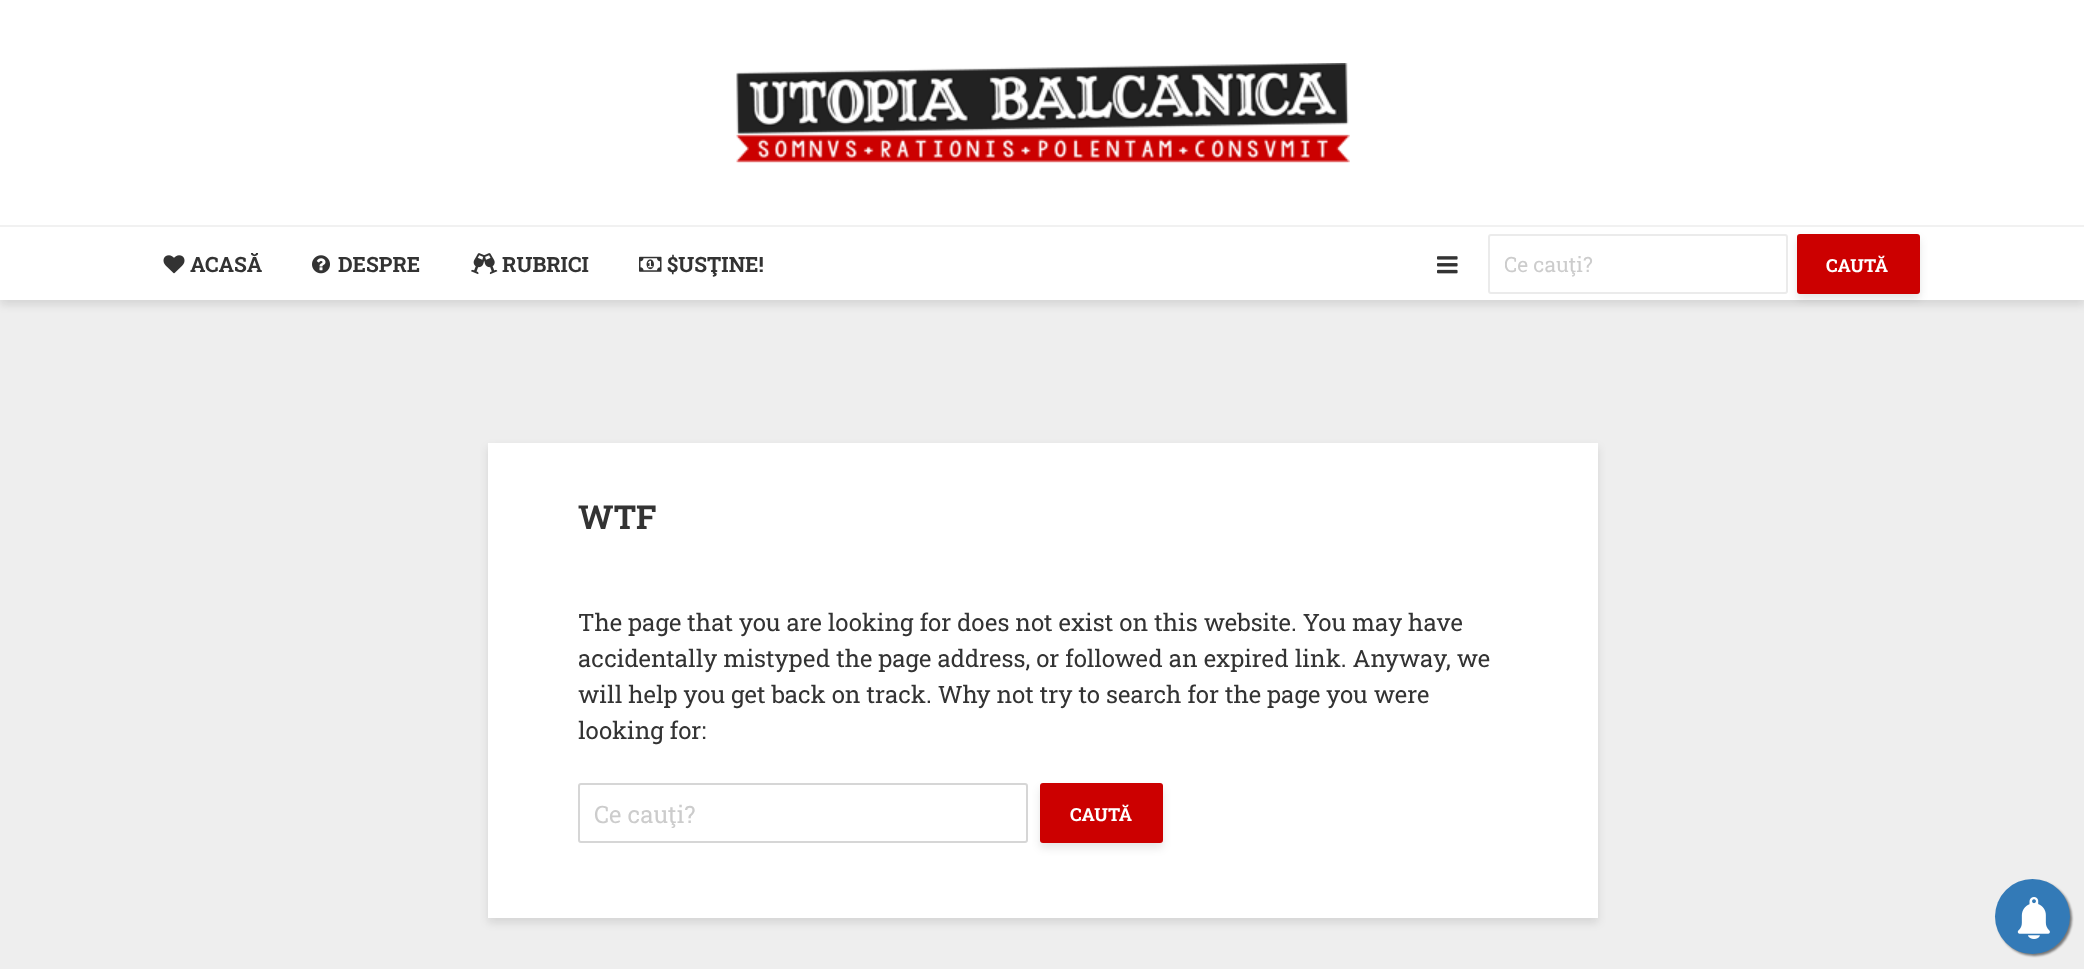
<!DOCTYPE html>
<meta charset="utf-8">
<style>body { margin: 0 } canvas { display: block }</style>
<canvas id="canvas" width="2084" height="969"></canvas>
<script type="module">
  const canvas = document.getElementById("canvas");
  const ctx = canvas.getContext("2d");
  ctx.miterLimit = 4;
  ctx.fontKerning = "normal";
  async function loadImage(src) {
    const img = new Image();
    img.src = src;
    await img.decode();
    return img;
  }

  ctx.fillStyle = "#eeeeee";
  ctx.fillRect(0, 0, 2084, 969);
  ctx.fillStyle = "rgba(0, 1, 1, 0.1)";
  ctx.filter = "blur(4px)";
  ctx.beginPath();
  ctx.rect(0, 5, 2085, 300);
  ctx.fill();
  ctx.filter = "none";
  ctx.fillStyle = "#ffffff";
  ctx.fillRect(0, 0, 2084, 225);
  ctx.drawImage(await loadImage("img1.png"), 736, 63, 614, 100);
  ctx.fillRect(0, 227, 2084, 73);
  ctx.fillStyle = "#f1f1f1";
  ctx.fillRect(0, 225, 2084, 2);
  ctx.drawImage(await loadImage("img2.png"), 163, 255, 22, 19);
  ctx.font = "bold 21px Roboto Slab";
  ctx.fillStyle = "#333333";
  ctx.fillText("ACASĂ", 190, 272);
  ctx.drawImage(await loadImage("img3.png"), 312, 255, 18, 19);
  ctx.fillText("DESPRE", 338, 272);
  ctx.drawImage(await loadImage("img4.png"), 471, 253, 27, 22);
  ctx.fillText("RUBRICI", 502, 272);
  ctx.drawImage(await loadImage("img5.png"), 639, 256, 23, 16);
  ctx.fillText("$USŢINE!", 667, 272);
  ctx.drawImage(await loadImage("img6.png"), 1437, 256, 21, 18);
  ctx.beginPath();
  ctx.roundRect(1489, 235, 298, 58, 2);
  ctx.strokeStyle = "#ebebeb";
  ctx.lineWidth = 2;
  ctx.stroke();
  ctx.save();
  ctx.beginPath();
  ctx.rect(1505, 251, 267, 28);
  ctx.clip();
  ctx.font = "21px Roboto Slab";
  ctx.fillStyle = "#cccccc";
  ctx.fillText("Ce cauţi?", 1504, 272);
  ctx.restore();
  ctx.fillStyle = "rgba(0, 0, 0, 0.1)";
  ctx.filter = "blur(4px)";
  ctx.beginPath();
  ctx.roundRect(1797, 239, 123, 60, 3);
  ctx.fill();
  ctx.filter = "none";
  ctx.fillStyle = "#cc0000";
  ctx.beginPath();
  ctx.roundRect(1797, 234, 123, 60, 3);
  ctx.fill();
  ctx.font = "bold 18px Roboto Slab";
  ctx.fillStyle = "#ffffff";
  ctx.fillText("CAUTĂ", 1826, 272);
  ctx.fillStyle = "rgba(0, 1, 1, 0.1)";
  ctx.filter = "blur(4px)";
  ctx.beginPath();
  ctx.rect(488, 447, 1110, 476);
  ctx.fill();
  ctx.filter = "none";
  ctx.fillStyle = "#ffffff";
  ctx.fillRect(488, 443, 1110, 475);
  ctx.font = "bold 33px Roboto Slab";
  ctx.fillStyle = "#333333";
  ctx.fillText("WTF", 578, 529);
  ctx.font = "24px Roboto Slab";
  ctx.fillText("The page that you are looking for does not exist on this website. You may have", 578, 631);
  ctx.fillText("accidentally mistyped the page address, or followed an expired link. Anyway, we", 578, 667);
  ctx.fillText("will help you get back on track. Why not try to search for the page you were", 578, 703);
  ctx.fillText("looking for:", 578, 739);
  ctx.beginPath();
  ctx.roundRect(579, 784, 448, 58, 2);
  ctx.strokeStyle = "#d6d6d6";
  ctx.stroke();
  ctx.fillStyle = "#cccccc";
  ctx.fillText("Ce cauţi?", 594, 823);
  ctx.fillStyle = "rgba(0, 0, 0, 0.1)";
  ctx.filter = "blur(4px)";
  ctx.beginPath();
  ctx.roundRect(1040, 788, 123, 60, 3);
  ctx.fill();
  ctx.filter = "none";
  ctx.fillStyle = "#cc0000";
  ctx.beginPath();
  ctx.roundRect(1040, 783, 123, 60, 3);
  ctx.fill();
  ctx.font = "bold 18px Roboto Slab";
  ctx.fillStyle = "#ffffff";
  ctx.fillText("CAUTĂ", 1070, 821);
  ctx.fillStyle = "rgba(0, 0, 0, 0.5)";
  ctx.filter = "blur(1px)";
  ctx.beginPath();
  ctx.roundRect(1997, 881, 75, 75, 37.5);
  ctx.fill();
  ctx.filter = "none";
  ctx.fillStyle = "#337ab7";
  ctx.beginPath();
  ctx.arc(2032.5, 916.5, 37.5, 0, Math.PI * 2);
  ctx.fill();
  ctx.drawImage(await loadImage("img7.png"), 2017, 897, 33, 42);
</script>
